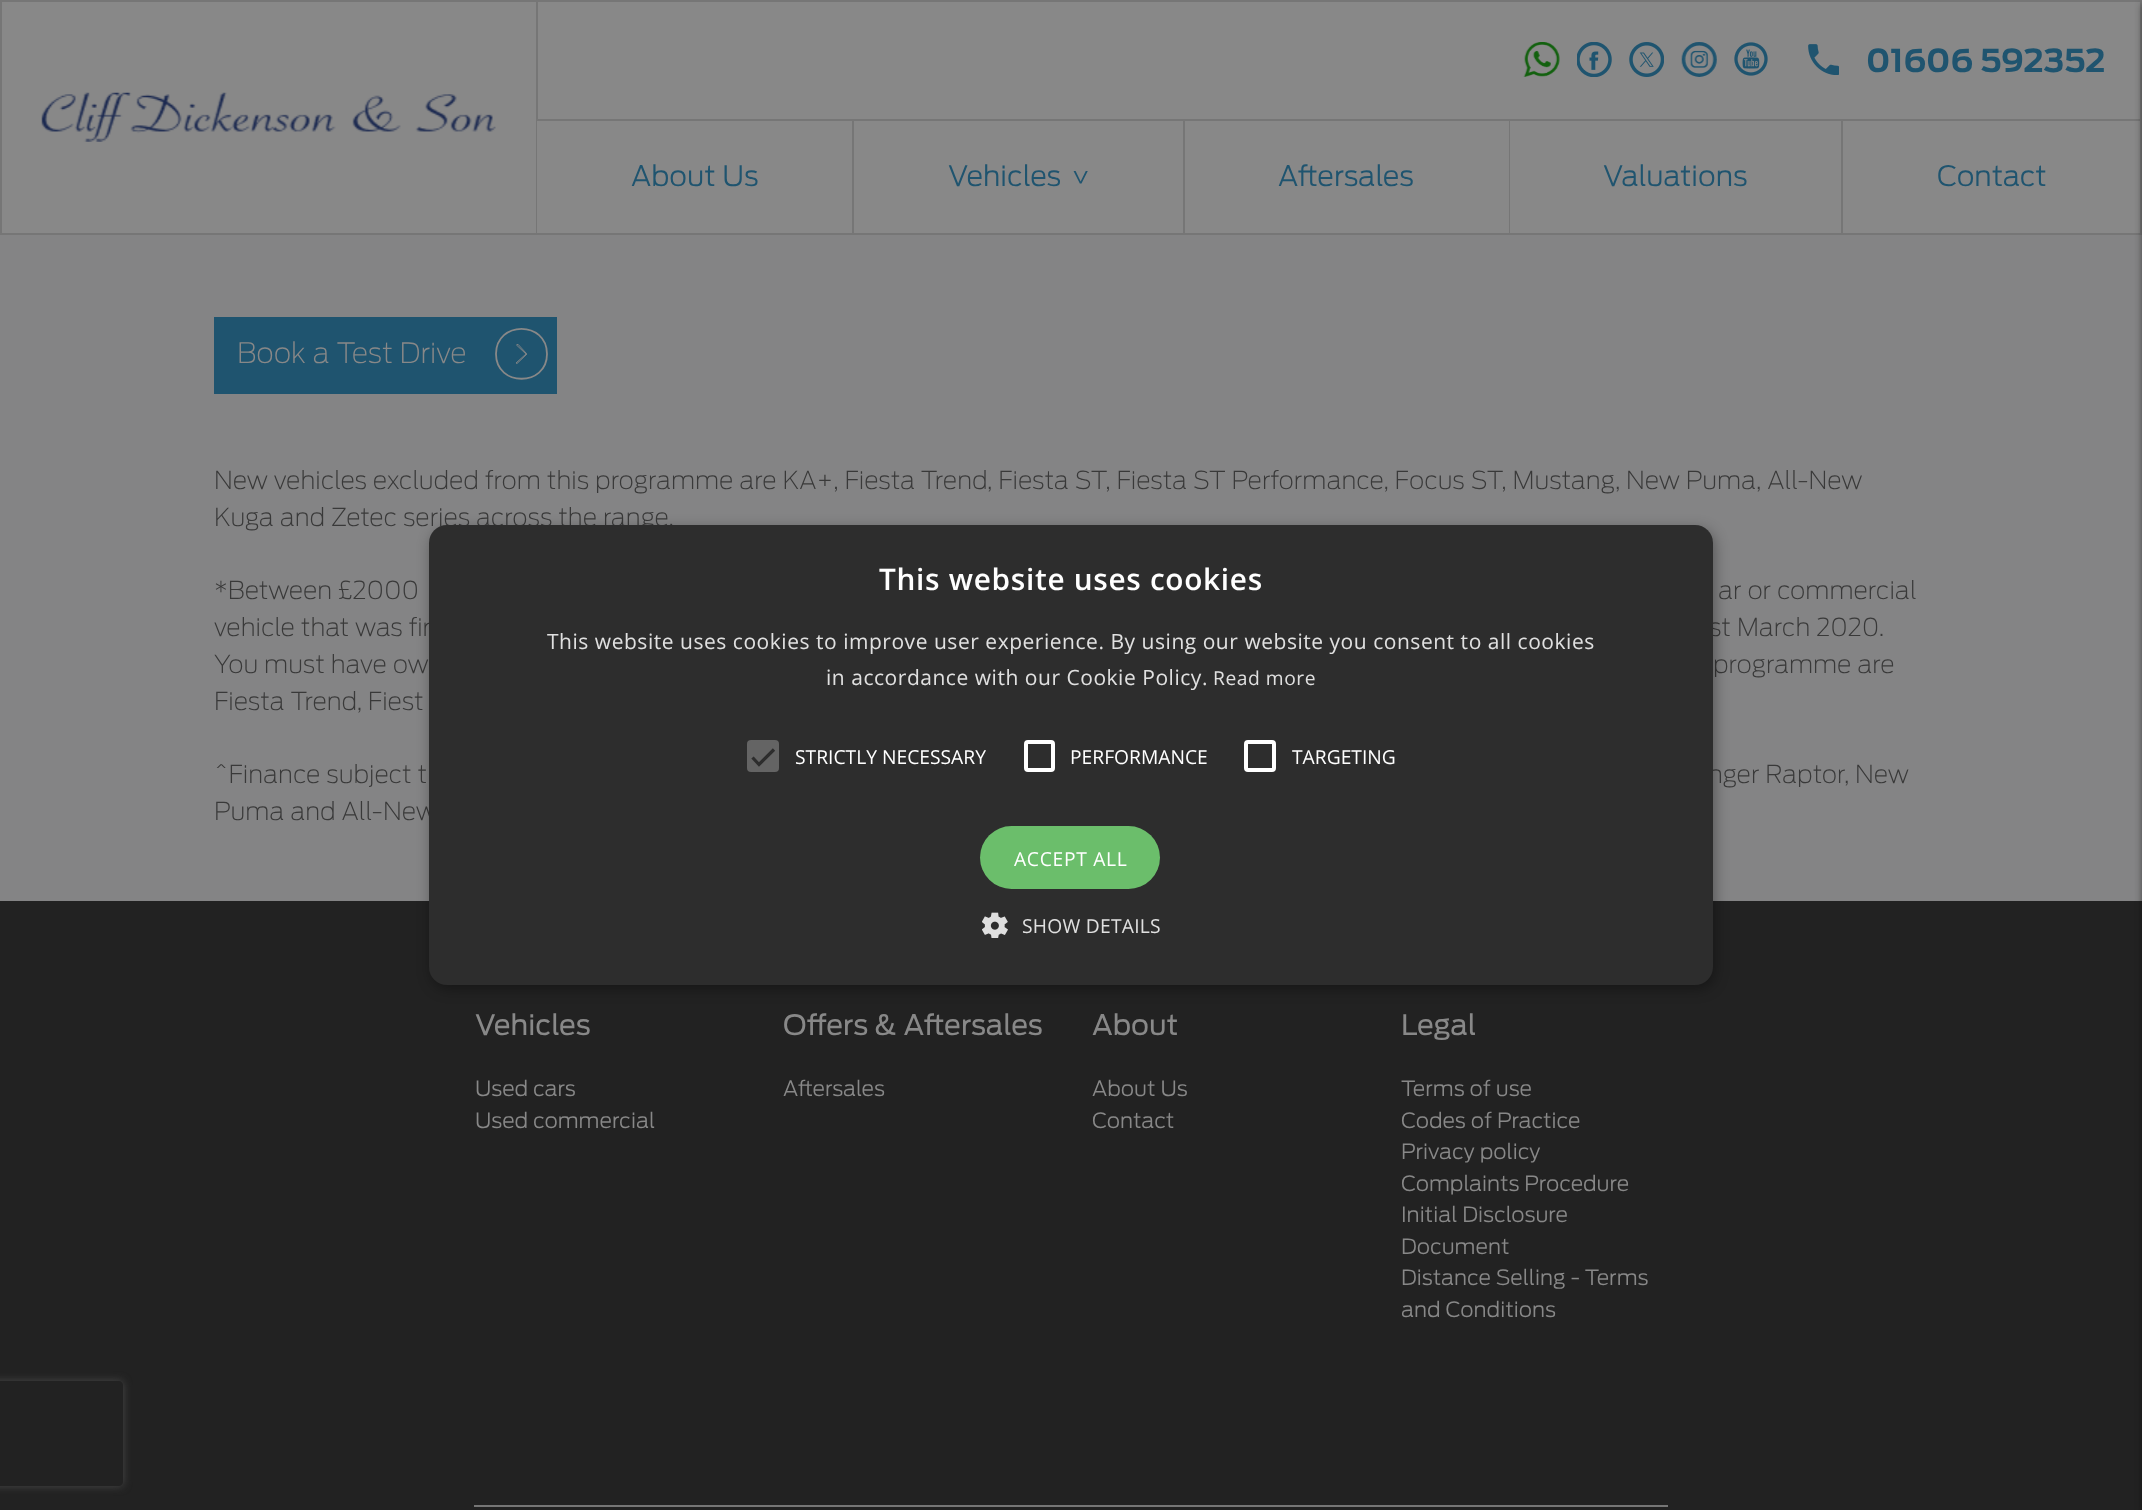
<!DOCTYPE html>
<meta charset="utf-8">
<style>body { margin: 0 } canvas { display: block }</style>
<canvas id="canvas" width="2142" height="1510"></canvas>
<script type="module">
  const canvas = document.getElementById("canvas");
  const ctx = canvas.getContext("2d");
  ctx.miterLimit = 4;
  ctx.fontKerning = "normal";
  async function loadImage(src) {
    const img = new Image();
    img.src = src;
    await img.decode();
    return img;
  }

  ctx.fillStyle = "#848485";
  ctx.fillRect(0, 0, 2142, 1510);
  ctx.fillStyle = "#888888";
  ctx.fillRect(2, 2, 2138, 231);
  ctx.strokeStyle = "#767676";
  ctx.lineWidth = 2;
  ctx.strokeRect(537, 1, 1604, 233);
  ctx.fillStyle = "#767676";
  ctx.fillRect(537, 119, 1603, 2);
  ctx.fillStyle = "#222222";
  ctx.fillRect(0, 901, 2142, 609);
  ctx.fillStyle = "rgba(9, 9, 9, 0.5)";
  ctx.filter = "blur(3.5px)";
  ctx.beginPath();
  ctx.rect(2142, 4, 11, 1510);
  ctx.fill();
  ctx.filter = "none";
  ctx.save();
  ctx.beginPath();
  ctx.moveTo(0, 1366);
  ctx.lineTo(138, 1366);
  ctx.lineTo(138, 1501);
  ctx.lineTo(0, 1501);
  ctx.closePath();
  ctx.moveTo(-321, 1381);
  ctx.lineTo(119, 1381);
  ctx.bezierCurveTo(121, 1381, 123, 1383, 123, 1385);
  ctx.lineTo(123, 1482);
  ctx.bezierCurveTo(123, 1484, 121, 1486, 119, 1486);
  ctx.lineTo(-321, 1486);
  ctx.bezierCurveTo(-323, 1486, -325, 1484, -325, 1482);
  ctx.lineTo(-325, 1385);
  ctx.bezierCurveTo(-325, 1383, -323, 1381, -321, 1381);
  ctx.closePath();
  ctx.clip("evenodd");
  ctx.fillStyle = "#494949";
  ctx.filter = "blur(4.5px)";
  ctx.beginPath();
  ctx.roundRect(-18, 1381, 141, 105, 4);
  ctx.fill();
  ctx.filter = "none";
  ctx.restore();
  ctx.fillStyle = "#767676";
  ctx.fillRect(0, 0, 536, 2);
  ctx.fillRect(0, 233, 536, 2);
  ctx.fillRect(0, 0, 2, 235);
  ctx.drawImage(await loadImage("img1.png"), 41, 92, 455, 50);
  ctx.drawImage(await loadImage("img2.png"), 1523, 42, 37, 35);
  ctx.drawImage(await loadImage("img3.png"), 1577, 42, 35, 35);
  ctx.drawImage(await loadImage("img4.png"), 1629, 42, 35, 35);
  ctx.drawImage(await loadImage("img5.png"), 1681, 42, 36, 35);
  ctx.drawImage(await loadImage("img6.png"), 1734, 42, 34, 34);
  ctx.drawImage(await loadImage("img7.png"), 1808, 44, 31, 31);
  ctx.font = "bold 31.5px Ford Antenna";
  ctx.fillStyle = "#1f546f";
  ctx.fillText("01606 592352", 1866, 72);
  ctx.fillStyle = "#888888";
  ctx.fillRect(537, 121, 1, 112);
  ctx.fillStyle = "#767676";
  ctx.fillRect(852, 121, 2, 112);
  ctx.font = "300 28px Ford Antenna";
  ctx.fillStyle = "#1f546f";
  ctx.fillText("About Us", 631, 186);
  ctx.fillStyle = "#767676";
  ctx.fillRect(1183, 121, 2, 112);
  ctx.fillStyle = "#1f546f";
  ctx.fillText("Vehicles", 948, 186);
  ctx.save();
  ctx.translate(1071, 167);
  ctx.rotate(90 * Math.PI / 180);
  ctx.fillText(">", 0, 0);
  ctx.restore();
  ctx.fillStyle = "#767676";
  ctx.fillRect(1509, 121, 1, 112);
  ctx.fillStyle = "#1f546f";
  ctx.fillText("Aftersales", 1278, 186);
  ctx.fillStyle = "#767676";
  ctx.fillRect(1841, 121, 2, 112);
  ctx.fillStyle = "#1f546f";
  ctx.fillText("Valuations", 1603, 186);
  ctx.fillText("Contact", 1937, 186);
  ctx.fillRect(214, 317, 343, 77);
  ctx.font = "200 28px Ford Antenna";
  ctx.fillStyle = "#888888";
  ctx.fillText("Book a Test Drive", 237, 363);
  ctx.beginPath();
  ctx.moveTo(526.5, 353.5);
  ctx.lineTo(527, 354);
  ctx.lineTo(517, 363.5);
  ctx.lineTo(516, 363);
  ctx.lineTo(526, 354);
  ctx.lineTo(516.5, 345);
  ctx.lineTo(517.5, 344.5);
  ctx.closePath();
  ctx.strokeStyle = "#888888";
  ctx.lineWidth = 0.9;
  ctx.lineCap = "square";
  ctx.stroke();
  ctx.beginPath();
  ctx.moveTo(496, 354);
  ctx.bezierCurveTo(496, 320.5, 547, 320.5, 547, 354);
  ctx.bezierCurveTo(547, 387, 496, 387, 496, 354);
  ctx.closePath();
  ctx.lineWidth = 1.8;
  ctx.lineCap = "butt";
  ctx.stroke();
  ctx.font = "200 24.5px Ford Antenna";
  ctx.fillStyle = "#393939";
  ctx.fillText("New vehicles excluded from this programme are KA+, Fiesta Trend, Fiesta ST, Fiesta ST Performance, Focus ST, Mustang, New Puma, All-New", 214, 489);
  ctx.fillText("Kuga and Zetec series across the range.", 214, 526);
  ctx.fillText("*Between £2000", 214, 599);
  ctx.fillText("ar or commercial", 1718, 599);
  ctx.fillText("vehicle that was fir", 214, 636);
  ctx.fillText("st March 2020.", 1709, 636);
  ctx.fillText("You must have ow", 214, 673);
  ctx.fillText("programme are", 1713, 673);
  ctx.fillText("Fiesta Trend, Fiest", 214, 710);
  ctx.fillText("^Finance subject t", 214, 783);
  ctx.fillText("nger Raptor, New", 1708, 783);
  ctx.fillText("Puma and All-New", 214, 820);
  ctx.font = "28px Ford Antenna";
  ctx.fillStyle = "#888888";
  ctx.fillText("Vehicles", 475, 1035);
  ctx.font = "300 21px Ford Antenna";
  ctx.fillText("Used cars", 475, 1096);
  ctx.fillText("Used commercial", 475, 1128);
  ctx.font = "28px Ford Antenna";
  ctx.fillText("Offers & Aftersales", 783, 1035);
  ctx.font = "300 21px Ford Antenna";
  ctx.fillText("Aftersales", 783, 1096);
  ctx.font = "28px Ford Antenna";
  ctx.fillText("About", 1092, 1035);
  ctx.font = "300 21px Ford Antenna";
  ctx.fillText("About Us", 1092, 1096);
  ctx.fillText("Contact", 1092, 1128);
  ctx.font = "28px Ford Antenna";
  ctx.fillText("Legal", 1401, 1035);
  ctx.font = "300 21px Ford Antenna";
  ctx.fillText("Terms of use", 1401, 1096);
  ctx.fillText("Codes of Practice", 1401, 1128);
  ctx.fillText("Privacy policy", 1401, 1159);
  ctx.fillText("Complaints Procedure", 1401, 1191);
  ctx.fillText("Initial Disclosure", 1401, 1222);
  ctx.fillText("Document", 1401, 1254);
  ctx.fillText("Distance Selling - Terms", 1401, 1285);
  ctx.fillText("and Conditions", 1401, 1317);
  ctx.fillStyle = "#767676";
  ctx.fillRect(474, 1505, 1194, 2);
  ctx.fillStyle = "rgba(0, 0, 0, 0.35)";
  ctx.filter = "blur(7px)";
  ctx.beginPath();
  ctx.roundRect(431, 529, 1284, 460, 18);
  ctx.fill();
  ctx.filter = "none";
  ctx.fillStyle = "#2d2d2d";
  ctx.beginPath();
  ctx.roundRect(429, 525, 1284, 460, 18);
  ctx.fill();
  ctx.letterSpacing = "0.7px";
  ctx.font = "600 29.75px Open Sans";
  ctx.fillStyle = "#ffffff";
  ctx.fillText("This website uses cookies", 879, 590);
  ctx.letterSpacing = "0.53px";
  ctx.font = "21px Open Sans";
  ctx.fillStyle = "#e0e0e0";
  ctx.fillText("This website uses cookies to improve user experience. By using our website you consent to all cookies", 547, 649);
  ctx.fillText("in accordance with our Cookie Policy.", 826, 685);
  ctx.font = "19.25px Open Sans";
  ctx.fillText("Read more", 1213, 685);
  ctx.fillStyle = "#646464";
  ctx.beginPath();
  ctx.roundRect(747, 740, 32, 32, 4);
  ctx.fill();
  ctx.beginPath();
  ctx.moveTo(752.5, 757.5);
  ctx.lineTo(759, 764.5);
  ctx.lineTo(774, 749.5);
  ctx.strokeStyle = "#2d2d2d";
  ctx.lineWidth = 3.2;
  ctx.stroke();
  ctx.letterSpacing = "0px";
  ctx.fillStyle = "#ffffff";
  ctx.fillText("STRICTLY NECESSARY", 795, 764);
  ctx.beginPath();
  ctx.roundRect(1026, 742, 27, 28, 2);
  ctx.strokeStyle = "#ffffff";
  ctx.lineWidth = 4;
  ctx.stroke();
  ctx.fillText("PERFORMANCE", 1070, 764);
  ctx.beginPath();
  ctx.roundRect(1246, 742, 28, 28, 2);
  ctx.stroke();
  ctx.fillText("TARGETING", 1292, 764);
  ctx.fillStyle = "#6bbe6b";
  ctx.beginPath();
  ctx.roundRect(980, 826, 180, 63, 31.5);
  ctx.fill();
  ctx.letterSpacing = "0.7px";
  ctx.fillStyle = "#ffffff";
  ctx.fillText("ACCEPT ALL", 1014, 866);
  ctx.drawImage(await loadImage("img8.png"), 982, 912, 26, 26);
  ctx.letterSpacing = "0.25px";
  ctx.fillStyle = "#e0e0e0";
  ctx.fillText("SHOW DETAILS", 1022, 933);
</script>
